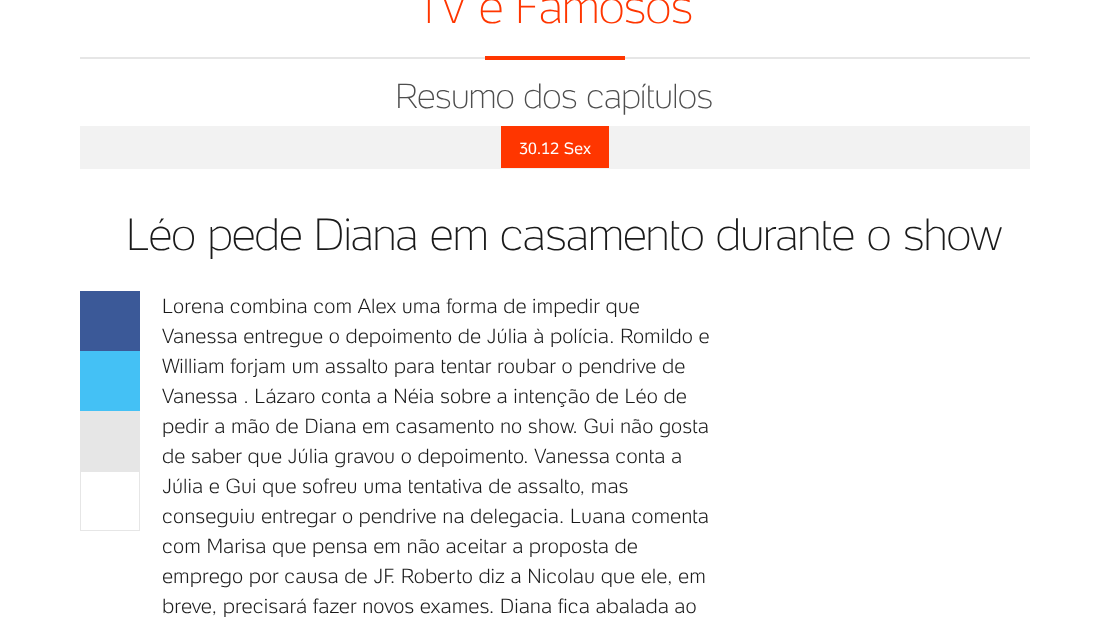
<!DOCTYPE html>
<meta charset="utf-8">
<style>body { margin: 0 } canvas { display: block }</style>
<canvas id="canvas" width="1109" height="631"></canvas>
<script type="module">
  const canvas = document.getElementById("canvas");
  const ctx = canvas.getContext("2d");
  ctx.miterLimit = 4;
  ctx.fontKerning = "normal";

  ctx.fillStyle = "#ffffff";
  ctx.fillRect(0, 0, 1109, 631);
  ctx.font = "100 46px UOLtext";
  ctx.fillStyle = "#ff3600";
  ctx.fillText("TV e Famosos", 417, 23);
  ctx.fillStyle = "#e6e6e6";
  ctx.fillRect(80, 57, 950, 2);
  ctx.fillStyle = "#ff3600";
  ctx.fillRect(485, 56, 140, 4);
  ctx.font = "100 34px UOLtext";
  ctx.fillStyle = "#4d4d4d";
  ctx.fillText("Resumo dos capítulos", 396, 108);
  ctx.fillStyle = "#f2f2f2";
  ctx.fillRect(80, 126, 950, 43);
  ctx.fillStyle = "#ff3600";
  ctx.fillRect(501, 126, 108, 42);
  ctx.font = "16px UOLtext";
  ctx.fillStyle = "#ffffff";
  ctx.fillText("30.12 Sex", 519, 154);
  ctx.font = "100 44px UOLtext";
  ctx.fillStyle = "#1a1a1a";
  ctx.fillText("Léo pede Diana em casamento durante o show", 127, 250);
  ctx.fillStyle = "#3b5998";
  ctx.fillRect(80, 291, 60, 60);
  ctx.fillStyle = "#44c1f5";
  ctx.fillRect(80, 351, 60, 60);
  ctx.fillStyle = "#e6e6e6";
  ctx.fillRect(80, 411, 60, 60);
  ctx.strokeStyle = "#e6e6e6";
  ctx.strokeRect(80.5, 471.5, 59, 59);
  ctx.font = "300 20px UOLtext";
  ctx.fillStyle = "#1a1a1a";
  ctx.fillText("Lorena combina com Alex uma forma de impedir que", 162, 313);
  ctx.fillText("Vanessa entregue o depoimento de Júlia à polícia. Romildo e", 162, 343);
  ctx.fillText("William forjam um assalto para tentar roubar o pendrive de", 162, 373);
  ctx.fillText("Vanessa . Lázaro conta a Néia sobre a intenção de Léo de", 162, 403);
  ctx.fillText("pedir a mão de Diana em casamento no show. Gui não gosta", 162, 433);
  ctx.fillText("de saber que Júlia gravou o depoimento. Vanessa conta a", 162, 463);
  ctx.fillText("Júlia e Gui que sofreu uma tentativa de assalto, mas", 162, 493);
  ctx.fillText("conseguiu entregar o pendrive na delegacia. Luana comenta", 162, 523);
  ctx.fillText("com Marisa que pensa em não aceitar a proposta de", 162, 553);
  ctx.fillText("emprego por causa de JF. Roberto diz a Nicolau que ele, em", 162, 583);
  ctx.fillText("breve, precisará fazer novos exames. Diana fica abalada ao", 162, 613);
</script>
